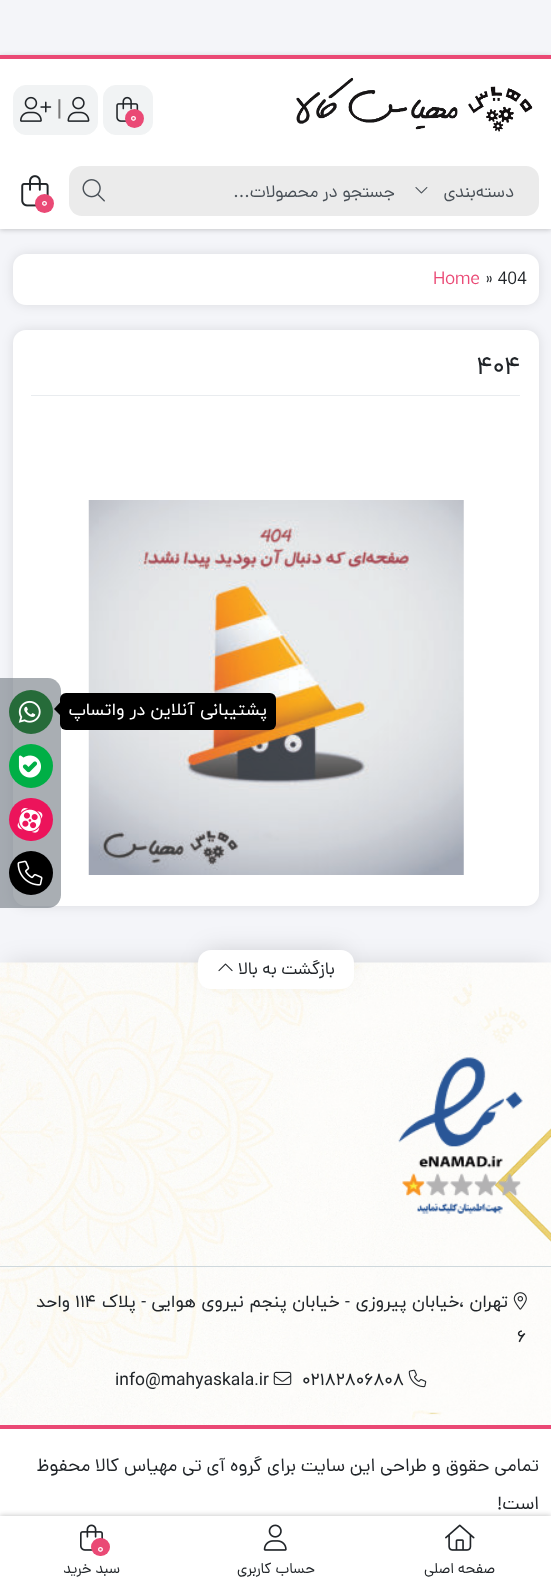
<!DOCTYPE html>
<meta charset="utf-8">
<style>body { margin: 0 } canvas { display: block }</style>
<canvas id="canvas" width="551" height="1584"></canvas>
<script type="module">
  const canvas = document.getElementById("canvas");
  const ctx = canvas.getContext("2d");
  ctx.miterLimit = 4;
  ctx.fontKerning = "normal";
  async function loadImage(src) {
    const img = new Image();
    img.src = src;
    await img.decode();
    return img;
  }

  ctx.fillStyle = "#f4f5f9";
  ctx.fillRect(0, 0, 551, 1584);
  ctx.fillStyle = "rgba(0, 0, 0, 0.19)";
  ctx.filter = "blur(2.5px)";
  ctx.beginPath();
  ctx.rect(0, 56, 551, 174);
  ctx.fill();
  ctx.filter = "none";
  ctx.fillStyle = "#ffffff";
  ctx.fillRect(0, 59, 551, 170);
  ctx.fillStyle = "#ea4975";
  ctx.fillRect(0, 55, 551, 4);
  ctx.drawImage(await loadImage("img1.png"), 296, 77, 237, 55);
  ctx.fillStyle = "#f1f3f4";
  ctx.beginPath();
  ctx.roundRect(103.5, 85.5, 49, 49, 12.5);
  ctx.fill();
  ctx.strokeStyle = "#f1f3f4";
  ctx.stroke();
  ctx.drawImage(await loadImage("img2.png"), 116, 96, 23, 26);
  ctx.fillStyle = "#ea4975";
  ctx.beginPath();
  ctx.arc(134.5, 118.5, 9.5, 0, Math.PI * 2);
  ctx.fill();
  ctx.font = "14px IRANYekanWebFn";
  ctx.fillStyle = "#ffffff";
  ctx.fillText("0", 130, 122);
  ctx.fillStyle = "#f1f3f4";
  ctx.beginPath();
  ctx.roundRect(13.5, 85.5, 84, 49, 12.5);
  ctx.fill();
  ctx.stroke();
  ctx.drawImage(await loadImage("img3.png"), 67, 96, 23, 26);
  ctx.font = "24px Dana";
  ctx.fillStyle = "#777777";
  ctx.fillText("|", 56, 116);
  ctx.drawImage(await loadImage("img4.png"), 20, 96, 32, 26);
  ctx.fillStyle = "#ebebeb";
  ctx.beginPath();
  ctx.roundRect(414, 166, 125, 50, [0, 13, 13, 0]);
  ctx.fill();
  ctx.direction = "rtl";
  ctx.font = "17.5px Dana";
  ctx.fillStyle = "#495057";
  ctx.fillText("دسته‌بندی", 514, 197);
  ctx.drawImage(await loadImage("img5.png"), 415, 187, 13, 7);
  ctx.fillStyle = "#ebebeb";
  ctx.fillRect(119, 166, 295, 50);
  ctx.fillStyle = "#495057";
  ctx.fillText("جستجو در محصولات...", 395, 197);
  ctx.fillStyle = "#ebebeb";
  ctx.beginPath();
  ctx.roundRect(69, 166, 50, 50, [13, 0, 0, 13]);
  ctx.fill();
  ctx.drawImage(await loadImage("img6.png"), 82, 179, 23, 23);
  ctx.drawImage(await loadImage("img7.png"), 21, 175, 28, 32);
  ctx.fillStyle = "#ea4975";
  ctx.beginPath();
  ctx.arc(44.5, 203.5, 9.5, 0, Math.PI * 2);
  ctx.fill();
  ctx.direction = "ltr";
  ctx.font = "14px IRANYekanWebFn";
  ctx.fillStyle = "#ffffff";
  ctx.fillText("0", 41, 207);
  ctx.fillStyle = "rgba(0, 0, 0, 0.1)";
  ctx.filter = "blur(6px)";
  ctx.beginPath();
  ctx.roundRect(13, 254, 526, 51, 13);
  ctx.fill();
  ctx.filter = "none";
  ctx.fillStyle = "#ffffff";
  ctx.beginPath();
  ctx.roundRect(13, 254, 526, 51, 13);
  ctx.fill();
  ctx.font = "17.5px Dana";
  ctx.fillStyle = "#212529";
  ctx.fillText("» 404", 485, 284);
  ctx.fillStyle = "#ea4975";
  ctx.fillText("Home", 433, 284);
  ctx.fillStyle = "rgba(0, 0, 0, 0.1)";
  ctx.filter = "blur(6px)";
  ctx.beginPath();
  ctx.roundRect(13, 330, 526, 576, 13);
  ctx.fill();
  ctx.filter = "none";
  ctx.fillStyle = "#ffffff";
  ctx.beginPath();
  ctx.roundRect(13, 330, 526, 576, 13);
  ctx.fill();
  ctx.fillStyle = "#e9ecef";
  ctx.fillRect(31, 395, 489, 1);
  ctx.font = "25px IRANYekanWebFn";
  ctx.fillStyle = "#212529";
  ctx.fillText("404", 477, 374);
  ctx.drawImage(await loadImage("img8.png"), 88, 500, 376, 375);
  ctx.fillStyle = "rgba(108, 117, 125, 0.59)";
  ctx.beginPath();
  ctx.moveTo(-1, 678);
  ctx.lineTo(48, 678);
  ctx.bezierCurveTo(55, 678, 61, 684, 61, 691);
  ctx.lineTo(61, 895);
  ctx.bezierCurveTo(61, 902, 55, 908, 48, 908);
  ctx.lineTo(-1, 908);
  ctx.closePath();
  ctx.fill();
  ctx.fillStyle = "#000000";
  ctx.beginPath();
  ctx.roundRect(60, 693, 216, 37, 6);
  ctx.fill();
  ctx.direction = "rtl";
  ctx.font = "17.5px IRANYekanWebFn";
  ctx.fillStyle = "#ffffff";
  ctx.fillText("پشتیبانی آنلاین در واتساپ", 267, 715);
  ctx.fillStyle = "#000000";
  ctx.beginPath();
  ctx.moveTo(60, 702.5);
  ctx.lineTo(60, 715);
  ctx.lineTo(54, 709);
  ctx.closePath();
  ctx.fill();
  ctx.fillStyle = "#266b39";
  ctx.beginPath();
  ctx.arc(31, 712, 22, 0, Math.PI * 2);
  ctx.fill();
  ctx.drawImage(await loadImage("img9.png"), 18, 700, 23, 23);
  ctx.fillStyle = "#00af46";
  ctx.beginPath();
  ctx.arc(31, 766, 22, 0, Math.PI * 2);
  ctx.fill();
  ctx.drawImage(await loadImage("img10.png"), 18, 755, 23, 23);
  ctx.fillStyle = "#ec145b";
  ctx.beginPath();
  ctx.roundRect(9, 798, 44, 43, 21.5);
  ctx.fill();
  ctx.drawImage(await loadImage("img11.png"), 17, 808, 26, 25);
  ctx.fillStyle = "#000000";
  ctx.beginPath();
  ctx.arc(31, 873, 22, 0, Math.PI * 2);
  ctx.fill();
  ctx.drawImage(await loadImage("img12.png"), 17, 860, 26, 26);
  ctx.fillStyle = "rgba(0, 0, 0, 0.12)";
  ctx.filter = "blur(12.5px)";
  ctx.beginPath();
  ctx.rect(8, 963, 536, 447);
  ctx.fill();
  ctx.filter = "none";
  ctx.drawImage(await loadImage("img13.png"), 0, 962, 551, 463);
  ctx.filter = "blur(12.5px)";
  ctx.beginPath();
  ctx.roundRect(205, 950, 141, 24, 5);
  ctx.fill();
  ctx.filter = "none";
  ctx.fillStyle = "#ffffff";
  ctx.beginPath();
  ctx.roundRect(198, 950, 156, 39, 13);
  ctx.fill();
  ctx.font = "17.5px Dana";
  ctx.fillStyle = "#212529";
  ctx.fillText("بازگشت به بالا", 335, 974);
  ctx.drawImage(await loadImage("img14.png"), 218, 963, 15, 9);
  ctx.fillStyle = "#cfd8dc";
  ctx.fillRect(0, 1266, 551, 1);
  ctx.drawImage(await loadImage("img15.png"), 398, 1057, 125, 157);
  ctx.drawImage(await loadImage("img16.png"), 513, 1292, 14, 18);
  ctx.font = "17.5px IRANYekanWebFn";
  ctx.fillStyle = "#212529";
  ctx.fillText("تهران ،خیابان پیروزی - خیابان پنجم نیروی هوایی - پلاک", 508, 1307);
  ctx.direction = "ltr";
  ctx.fillText("114", 75, 1307);
  ctx.direction = "rtl";
  ctx.fillText("واحد", 70, 1307);
  ctx.direction = "ltr";
  ctx.fillText("6", 517, 1342);
  ctx.drawImage(await loadImage("img17.png"), 408, 1369, 19, 19);
  ctx.fillText("02182806808", 302, 1385);
  ctx.drawImage(await loadImage("img18.png"), 273, 1371, 19, 14);
  ctx.fillText("info@mahyaskala.ir", 115, 1385);
  ctx.fillStyle = "#ffffff";
  ctx.fillRect(0, 1429, 551, 87);
  ctx.fillStyle = "#ea4975";
  ctx.fillRect(0, 1425, 551, 4);
  ctx.direction = "rtl";
  ctx.font = "18.75px Dana";
  ctx.fillStyle = "#212529";
  ctx.fillText("تمامی حقوق و طراحی این سایت برای گروه آی تی مهیاس کالا محفوظ", 539, 1471);
  ctx.fillText("است!", 539, 1509);
  ctx.fillStyle = "rgba(0, 0, 0, 0.19)";
  ctx.filter = "blur(2.5px)";
  ctx.beginPath();
  ctx.rect(0, 1515, 551, 69);
  ctx.fill();
  ctx.filter = "none";
  ctx.fillStyle = "#ffffff";
  ctx.fillRect(0, 1516, 551, 68);
  ctx.drawImage(await loadImage("img19.png"), 445, 1524, 30, 27);
  ctx.font = "15px Dana";
  ctx.fillStyle = "#212529";
  ctx.fillText("صفحه اصلی", 495, 1573);
  ctx.drawImage(await loadImage("img20.png"), 263, 1524, 24, 27);
  ctx.fillText("حساب کاربری", 315, 1573);
  ctx.drawImage(await loadImage("img21.png"), 80, 1524, 23, 27);
  ctx.fillStyle = "#ea4975";
  ctx.beginPath();
  ctx.roundRect(91, 1538, 19, 18, 9);
  ctx.fill();
  ctx.direction = "ltr";
  ctx.font = "14px IRANYekanWebFn";
  ctx.fillStyle = "#ffffff";
  ctx.fillText("0", 97, 1553);
  ctx.direction = "rtl";
  ctx.font = "15px Dana";
  ctx.fillStyle = "#212529";
  ctx.fillText("سبد خرید", 120, 1573);
</script>
